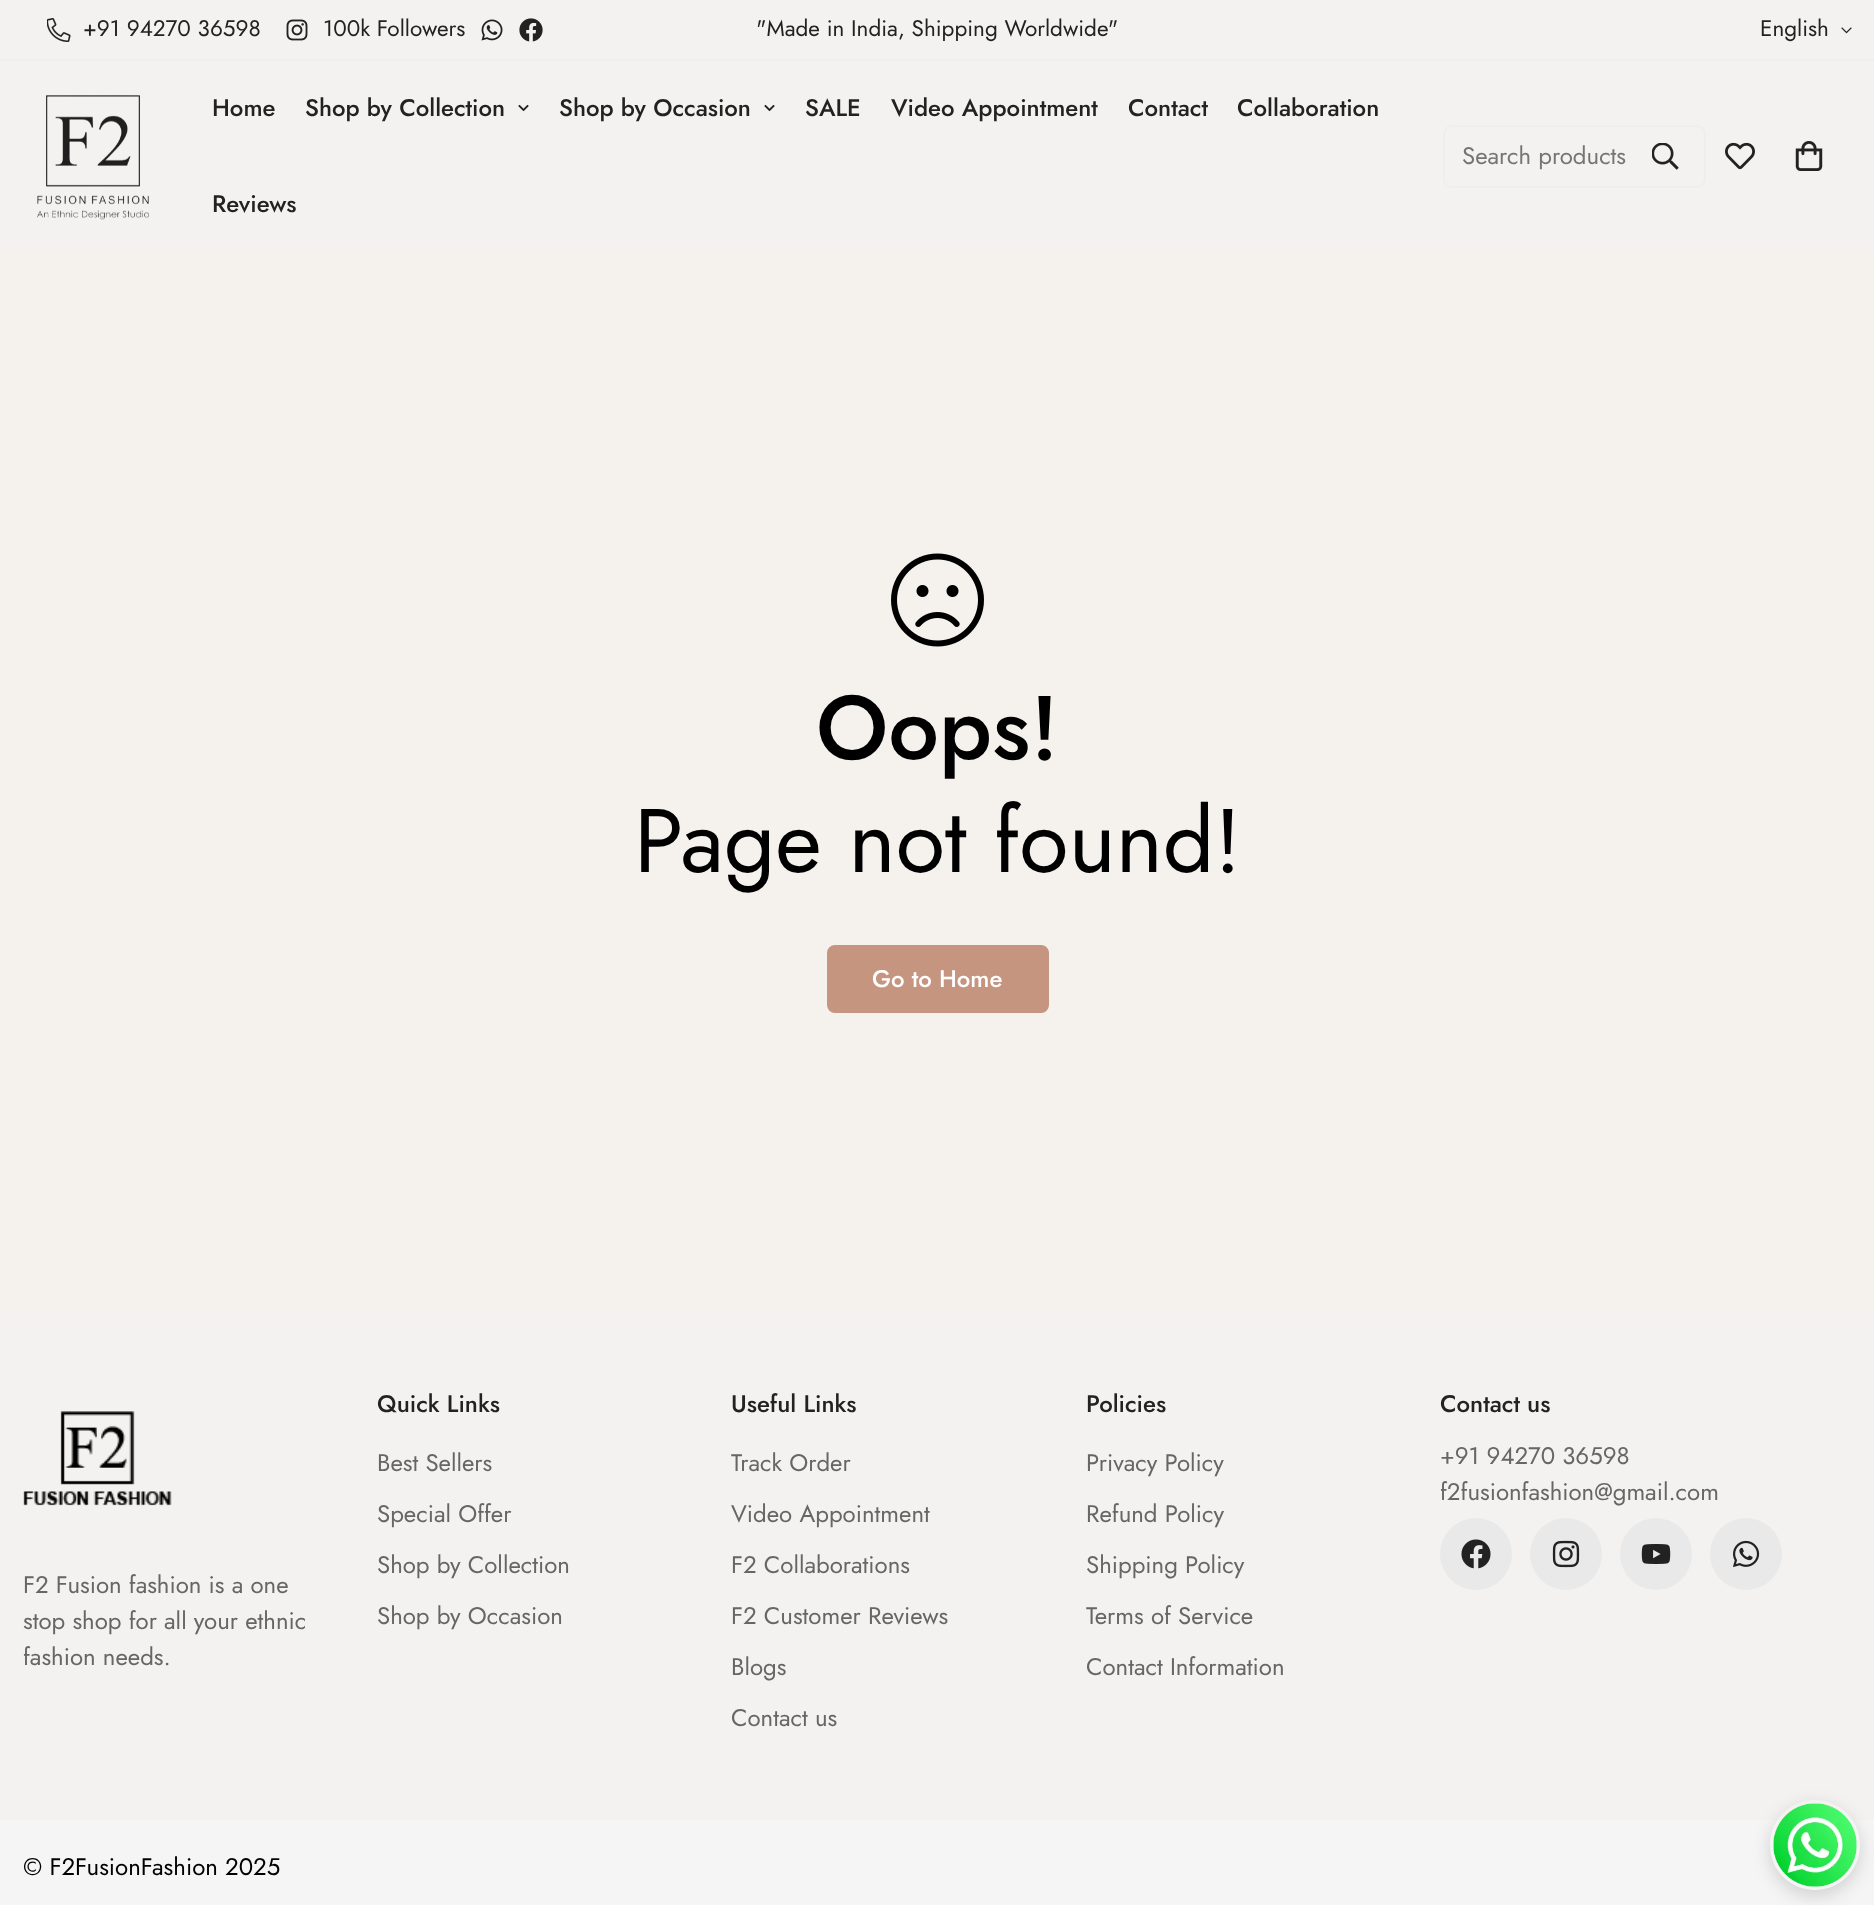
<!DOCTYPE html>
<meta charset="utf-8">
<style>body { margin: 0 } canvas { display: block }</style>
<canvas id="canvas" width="1874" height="1905"></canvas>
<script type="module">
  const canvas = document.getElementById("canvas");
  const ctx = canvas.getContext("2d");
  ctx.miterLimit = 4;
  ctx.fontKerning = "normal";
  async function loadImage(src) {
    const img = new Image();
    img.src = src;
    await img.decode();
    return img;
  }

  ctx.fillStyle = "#f4f2f1";
  ctx.fillRect(0, 0, 1874, 1905);
  ctx.fillStyle = "#eeeeee";
  ctx.fillRect(0, 59, 1874, 2);
  ctx.drawImage(await loadImage("img1.png"), 47, 18, 24, 24);
  ctx.font = "22.5px Jost";
  ctx.fillStyle = "#222222";
  ctx.fillText("+91 94270 36598", 83, 36);
  ctx.drawImage(await loadImage("img2.png"), 286, 19, 22, 22);
  ctx.fillText("100k Followers", 323, 36);
  ctx.drawImage(await loadImage("img3.png"), 481, 19, 22, 22);
  ctx.drawImage(await loadImage("img4.png"), 519, 18, 24, 24);
  ctx.fillText("\"Made in India, Shipping Worldwide\"", 756, 36);
  ctx.fillText("English", 1760, 36);
  ctx.drawImage(await loadImage("img5.png"), 1841, 27, 11, 7);
  ctx.drawImage(await loadImage("img6.png"), 37, 95, 113, 125);
  ctx.font = "500 24px Jost";
  ctx.fillText("Home", 212, 116);
  ctx.fillText("Shop by Collection", 305, 116);
  ctx.drawImage(await loadImage("img7.png"), 518, 104, 11, 8);
  ctx.fillText("Shop by Occasion", 559, 116);
  ctx.drawImage(await loadImage("img7.png"), 764, 104, 11, 8);
  ctx.fillText("SALE", 805, 116);
  ctx.fillText("Video Appointment", 891, 116);
  ctx.fillText("Contact", 1128, 116);
  ctx.fillText("Collaboration", 1237, 116);
  ctx.fillText("Reviews", 212, 212);
  ctx.beginPath();
  ctx.roundRect(1444, 126, 261, 61, 8);
  ctx.strokeStyle = "#eeeeee";
  ctx.lineWidth = 2;
  ctx.stroke();
  ctx.font = "24px Jost";
  ctx.fillStyle = "#767575";
  ctx.fillText("Search products", 1462, 164);
  ctx.drawImage(await loadImage("img8.png"), 1652, 143, 27, 27);
  ctx.drawImage(await loadImage("img9.png"), 1725, 142, 30, 28);
  ctx.drawImage(await loadImage("img10.png"), 1795, 141, 28, 30);
  ctx.fillStyle = "#f5f1ed";
  ctx.fillRect(0, 252, 1874, 1061);
  ctx.drawImage(await loadImage("img11.png"), 891, 553, 93, 94);
  ctx.font = "500 90px Jost";
  ctx.fillStyle = "#000000";
  ctx.fillText("Oops!", 816, 759);
  ctx.font = "90px Jost";
  ctx.fillText("Page not found!", 634, 872);
  ctx.fillStyle = "#c69580";
  ctx.beginPath();
  ctx.roundRect(828, 946, 220, 66, 7);
  ctx.fill();
  ctx.strokeStyle = "#c69580";
  ctx.stroke();
  ctx.font = "500 24px Jost";
  ctx.fillStyle = "#ffffff";
  ctx.fillText("Go to Home", 872, 987);
  ctx.fillStyle = "#222222";
  ctx.fillText("Quick Links", 377, 1412);
  ctx.font = "24px Jost";
  ctx.fillStyle = "#666666";
  ctx.fillText("Best Sellers", 377, 1471);
  ctx.fillText("Special Offer", 377, 1522);
  ctx.fillText("Shop by Collection", 377, 1573);
  ctx.fillText("Shop by Occasion", 377, 1624);
  ctx.font = "500 24px Jost";
  ctx.fillStyle = "#222222";
  ctx.fillText("Useful Links", 731, 1412);
  ctx.font = "24px Jost";
  ctx.fillStyle = "#666666";
  ctx.fillText("Track Order", 731, 1471);
  ctx.fillText("Video Appointment", 731, 1522);
  ctx.fillText("F2 Collaborations", 731, 1573);
  ctx.fillText("F2 Customer Reviews", 731, 1624);
  ctx.fillText("Blogs", 731, 1675);
  ctx.fillText("Contact us", 731, 1726);
  ctx.font = "500 24px Jost";
  ctx.fillStyle = "#222222";
  ctx.fillText("Policies", 1086, 1412);
  ctx.font = "24px Jost";
  ctx.fillStyle = "#666666";
  ctx.fillText("Privacy Policy", 1086, 1471);
  ctx.fillText("Refund Policy", 1086, 1522);
  ctx.fillText("Shipping Policy", 1086, 1573);
  ctx.fillText("Terms of Service", 1086, 1624);
  ctx.fillText("Contact Information", 1086, 1675);
  ctx.font = "500 24px Jost";
  ctx.fillStyle = "#222222";
  ctx.fillText("Contact us", 1440, 1412);
  ctx.font = "24px Jost";
  ctx.fillStyle = "#666666";
  ctx.fillText("+91 94270 36598", 1440, 1464);
  ctx.fillText("f2fusionfashion@gmail.com", 1440, 1500);
  ctx.fillStyle = "#e9e9e9";
  ctx.beginPath();
  ctx.arc(1476, 1554, 36, 0, Math.PI * 2);
  ctx.fill();
  ctx.drawImage(await loadImage("img12.png"), 1461, 1539, 30, 30);
  ctx.beginPath();
  ctx.arc(1566, 1554, 36, 0, Math.PI * 2);
  ctx.fill();
  ctx.drawImage(await loadImage("img13.png"), 1552, 1540, 28, 28);
  ctx.beginPath();
  ctx.arc(1656, 1554, 36, 0, Math.PI * 2);
  ctx.fill();
  ctx.drawImage(await loadImage("img14.png"), 1641, 1544, 30, 20);
  ctx.beginPath();
  ctx.arc(1746, 1554, 36, 0, Math.PI * 2);
  ctx.fill();
  ctx.drawImage(await loadImage("img15.png"), 1733, 1540, 27, 27);
  ctx.drawImage(await loadImage("img16.png"), 23, 1411, 149, 95);
  ctx.fillStyle = "#666666";
  ctx.fillText("F2 Fusion fashion is a one", 23, 1593);
  ctx.fillText("stop shop for all your ethnic", 23, 1629);
  ctx.fillText("fashion needs.", 23, 1665);
  ctx.fillStyle = "#f5f5f5";
  ctx.fillRect(0, 1820, 1874, 85);
  ctx.fillStyle = "#000000";
  ctx.fillText("© F2FusionFashion 2025", 23, 1875);
  ctx.save();
  ctx.beginPath();
  ctx.moveTo(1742, 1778);
  ctx.lineTo(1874, 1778);
  ctx.lineTo(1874, 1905);
  ctx.lineTo(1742, 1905);
  ctx.closePath();
  ctx.moveTo(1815, 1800);
  ctx.bezierCurveTo(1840, 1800, 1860, 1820, 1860, 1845);
  ctx.bezierCurveTo(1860, 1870, 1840, 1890, 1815, 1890);
  ctx.bezierCurveTo(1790, 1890, 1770, 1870, 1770, 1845);
  ctx.bezierCurveTo(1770, 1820, 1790, 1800, 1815, 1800);
  ctx.closePath();
  ctx.clip("evenodd");
  ctx.fillStyle = "rgba(0, 0, 0, 0.15)";
  ctx.filter = "blur(9px)";
  ctx.beginPath();
  ctx.roundRect(1770, 1806, 90, 90, 45);
  ctx.fill();
  ctx.filter = "none";
  ctx.restore();
  ctx.drawImage(await loadImage("img17.png"), 1773, 1803, 84, 84);
</script>
